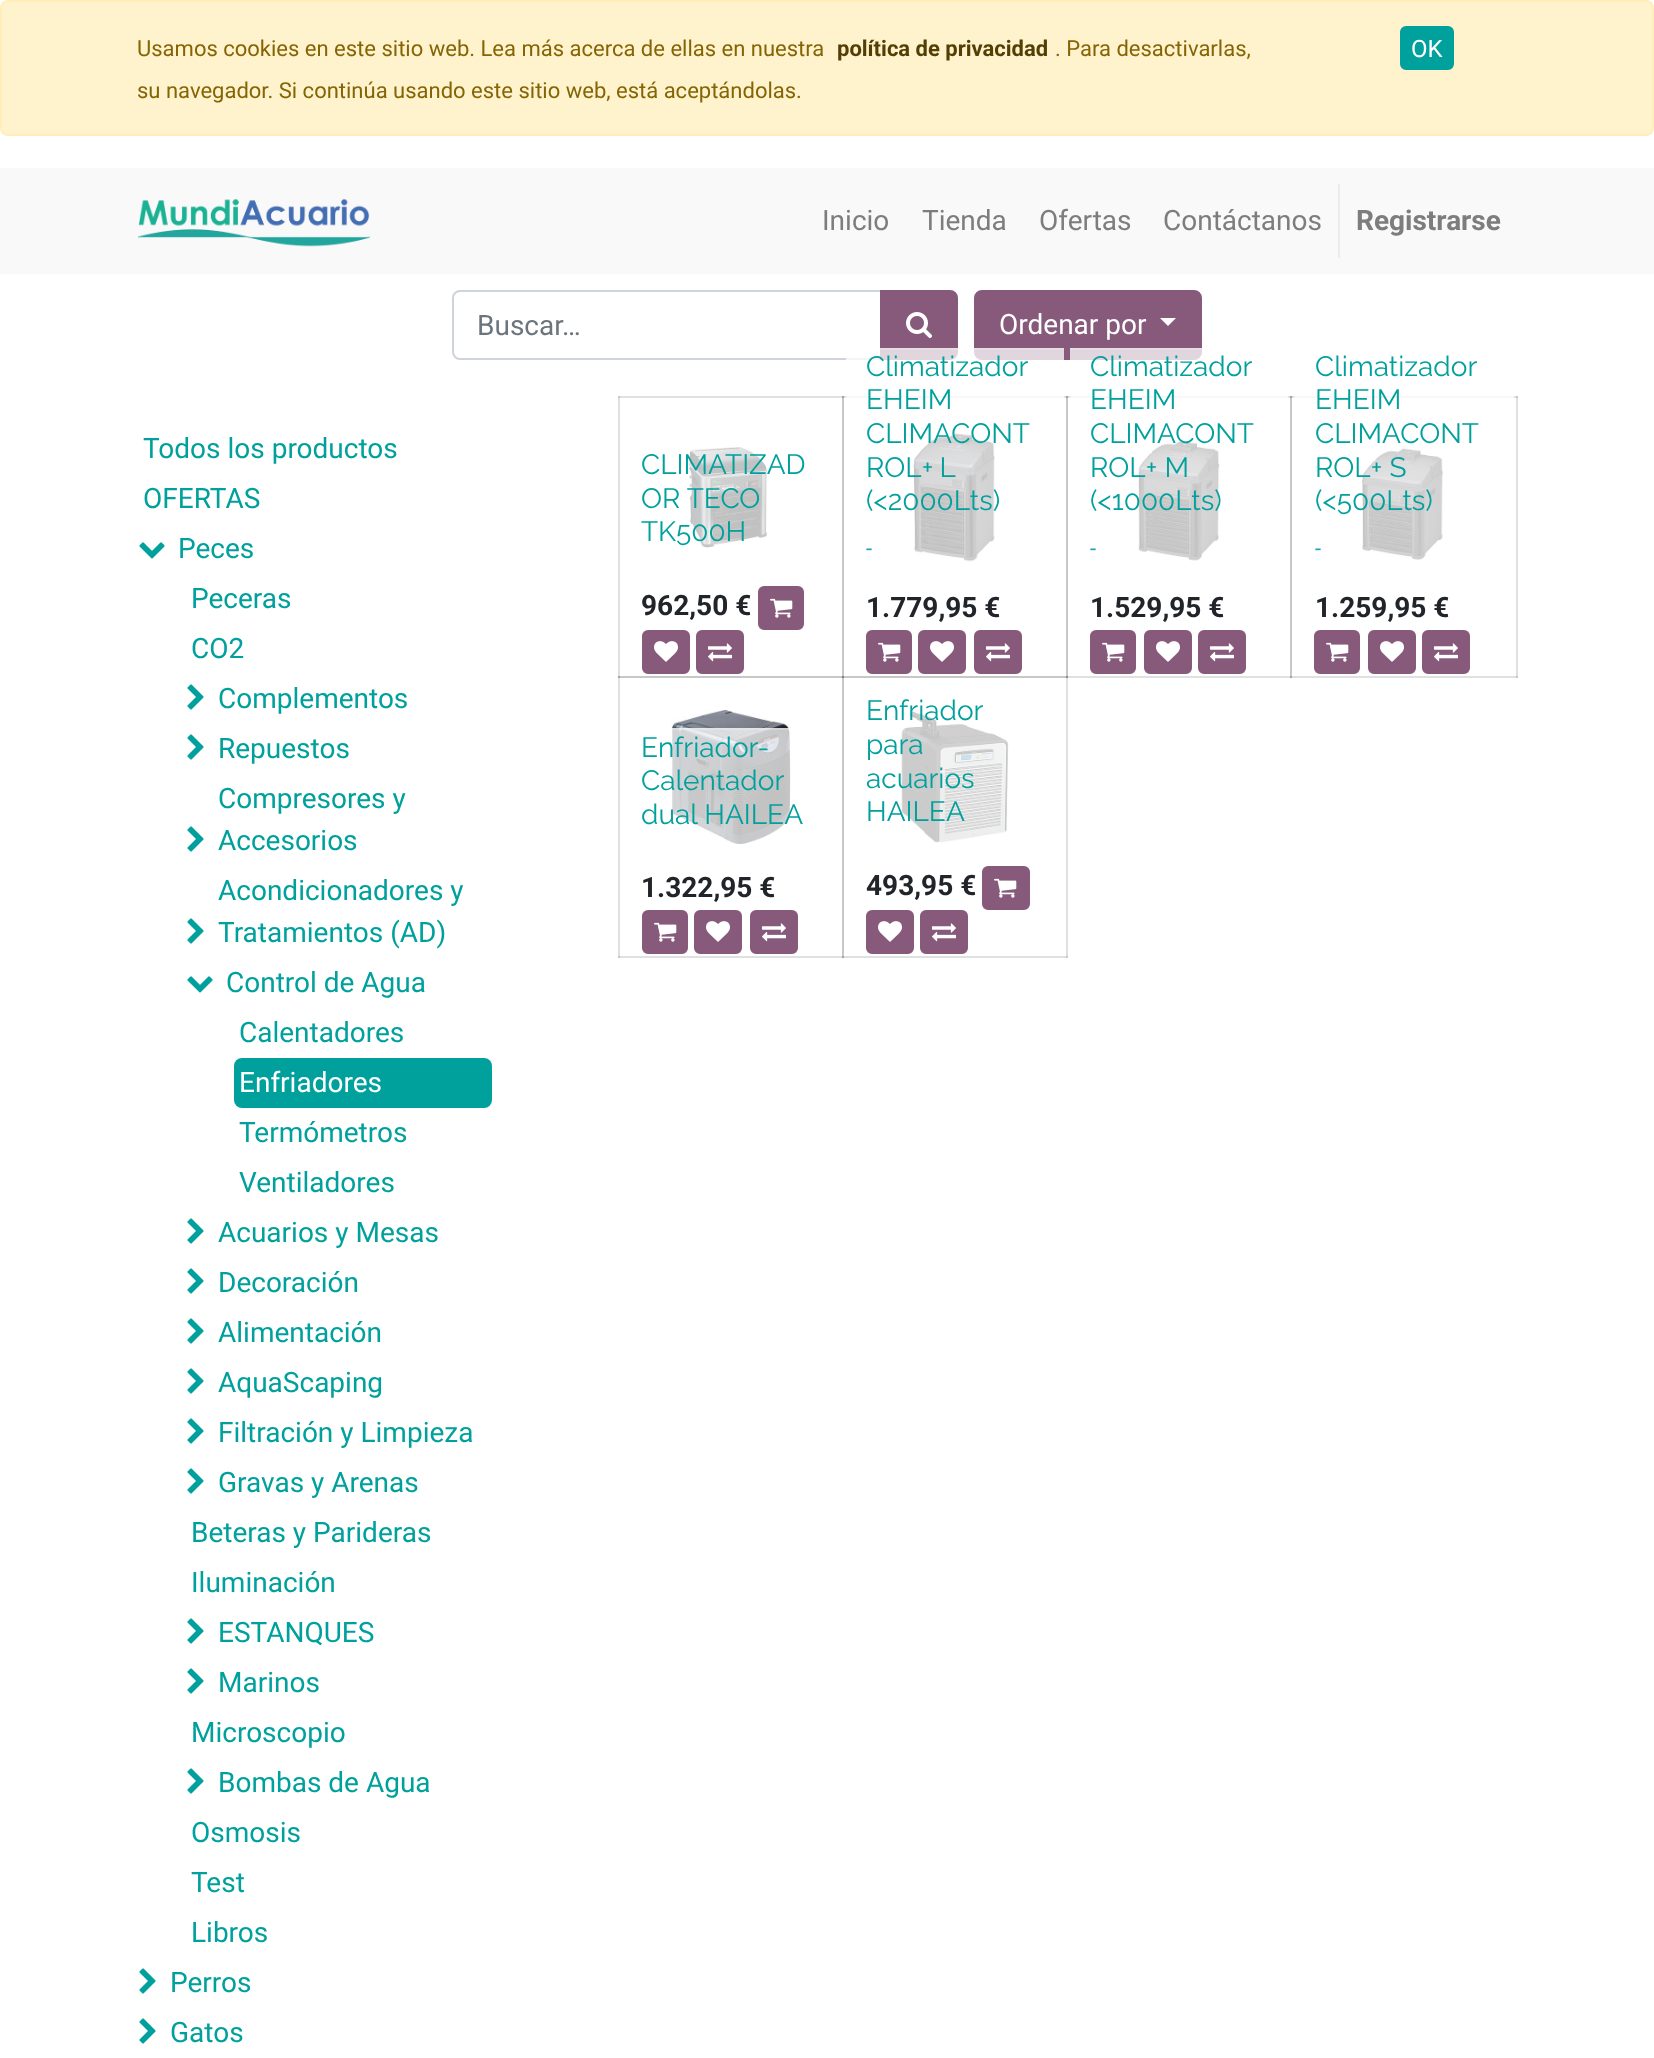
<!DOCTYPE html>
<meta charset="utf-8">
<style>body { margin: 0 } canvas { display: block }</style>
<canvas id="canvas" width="1654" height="2058"></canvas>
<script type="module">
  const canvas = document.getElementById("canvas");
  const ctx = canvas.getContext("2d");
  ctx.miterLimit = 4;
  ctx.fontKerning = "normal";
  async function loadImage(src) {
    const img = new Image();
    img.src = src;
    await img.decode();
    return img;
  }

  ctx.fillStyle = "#ffffff";
  ctx.fillRect(0, 0, 1654, 2058);
  ctx.fillStyle = "#e0e0e0";
  ctx.fillRect(618, 396, 2, 562);
  ctx.fillRect(618, 396, 226, 2);
  ctx.fillStyle = "#c7c7c7";
  ctx.fillRect(618, 396, 2, 2);
  ctx.fillRect(842, 396, 2, 282);
  ctx.fillStyle = "#e0e0e0";
  ctx.fillRect(842, 396, 226, 2);
  ctx.fillStyle = "#a3a3a3";
  ctx.fillRect(842, 396, 2, 2);
  ctx.fillStyle = "#c7c7c7";
  ctx.fillRect(1066, 396, 2, 282);
  ctx.fillStyle = "#e0e0e0";
  ctx.fillRect(1066, 676, 226, 2);
  ctx.fillRect(1066, 396, 226, 2);
  ctx.fillStyle = "#a3a3a3";
  ctx.fillRect(1066, 396, 2, 2);
  ctx.fillStyle = "#c7c7c7";
  ctx.fillRect(1290, 396, 2, 282);
  ctx.fillStyle = "#e0e0e0";
  ctx.fillRect(1290, 676, 228, 2);
  ctx.fillStyle = "#a3a3a3";
  ctx.fillRect(1290, 676, 2, 2);
  ctx.fillStyle = "#e0e0e0";
  ctx.fillRect(1516, 396, 2, 282);
  ctx.fillStyle = "#c7c7c7";
  ctx.fillRect(1516, 676, 2, 2);
  ctx.fillStyle = "#e0e0e0";
  ctx.fillRect(618, 956, 226, 2);
  ctx.fillStyle = "#c7c7c7";
  ctx.fillRect(618, 956, 2, 2);
  ctx.fillRect(618, 676, 226, 2);
  ctx.fillStyle = "#a3a3a3";
  ctx.fillRect(618, 676, 2, 2);
  ctx.fillStyle = "#c7c7c7";
  ctx.fillRect(842, 676, 2, 282);
  ctx.fillStyle = "#e0e0e0";
  ctx.fillRect(842, 956, 226, 2);
  ctx.fillStyle = "#a3a3a3";
  ctx.fillRect(842, 956, 2, 2);
  ctx.fillStyle = "#e0e0e0";
  ctx.fillRect(1066, 676, 2, 282);
  ctx.fillStyle = "#c7c7c7";
  ctx.fillRect(1066, 956, 2, 2);
  ctx.fillStyle = "#fff3cd";
  ctx.beginPath();
  ctx.roundRect(1, 1, 1652, 134, 7);
  ctx.fill();
  ctx.strokeStyle = "#ffeeba";
  ctx.lineWidth = 2;
  ctx.stroke();
  ctx.font = "22px Roboto";
  ctx.fillStyle = "#856404";
  ctx.fillText("Usamos cookies en este sitio web. Lea más acerca de ellas en nuestra", 137, 56);
  ctx.font = "bold 22px Roboto";
  ctx.fillStyle = "#533f03";
  ctx.fillText("política de privacidad", 837, 56);
  ctx.font = "22px Roboto";
  ctx.fillStyle = "#856404";
  ctx.fillText(". Para desactivarlas,", 1055, 56);
  ctx.fillText("su navegador. Si continúa usando este sitio web, está aceptándolas.", 137, 98);
  ctx.fillStyle = "#00a09d";
  ctx.beginPath();
  ctx.roundRect(1401, 27, 52, 42, 5);
  ctx.fill();
  ctx.strokeStyle = "#00a09d";
  ctx.stroke();
  ctx.font = "24px Roboto";
  ctx.fillStyle = "#ffffff";
  ctx.fillText("OK", 1411, 57);
  ctx.fillStyle = "#f9f9f9";
  ctx.fillRect(0, 168, 1654, 106);
  ctx.drawImage(await loadImage("img1.png"), 138, 199, 232, 48);
  ctx.font = "28px Roboto";
  ctx.fillStyle = "#7d7d7d";
  ctx.fillText("Inicio", 822, 230);
  ctx.fillText("Tienda", 922, 230);
  ctx.fillText("Ofertas", 1039, 230);
  ctx.fillText("Contáctanos", 1163, 230);
  ctx.fillStyle = "#e9ecef";
  ctx.fillRect(1338, 184, 2, 74);
  ctx.font = "bold 28px Roboto";
  ctx.fillStyle = "#7d7d7d";
  ctx.fillText("Registrarse", 1356, 230);
  ctx.beginPath();
  ctx.roundRect(453, 291, 428, 68, [7, 0, 0, 7]);
  ctx.strokeStyle = "#ced4da";
  ctx.stroke();
  ctx.font = "28px Roboto";
  ctx.fillStyle = "#6c757d";
  ctx.fillText("Buscar…", 477, 335);
  ctx.fillStyle = "#875a7b";
  ctx.beginPath();
  ctx.roundRect(881, 291, 76, 68, [0, 7, 7, 0]);
  ctx.fill();
  ctx.strokeStyle = "#875a7b";
  ctx.stroke();
  ctx.drawImage(await loadImage("img2.png"), 906, 312, 26, 26);
  ctx.beginPath();
  ctx.roundRect(975, 291, 226, 68, 7);
  ctx.fill();
  ctx.stroke();
  ctx.fillStyle = "#ffffff";
  ctx.fillText("Ordenar por", 999, 334);
  ctx.beginPath();
  ctx.moveTo(1160, 318);
  ctx.lineTo(1176, 318);
  ctx.lineTo(1168, 326);
  ctx.closePath();
  ctx.fill();
  ctx.fillStyle = "#00a09d";
  ctx.fillText("Todos los productos", 143, 458);
  ctx.fillText("OFERTAS", 143, 508);
  ctx.drawImage(await loadImage("img3.png"), 139, 542, 26, 17);
  ctx.fillText("Peces", 178, 558);
  ctx.fillText("Peceras", 191, 608);
  ctx.fillText("CO2", 191, 658);
  ctx.drawImage(await loadImage("img4.png"), 187, 684, 17, 26);
  ctx.fillText("Complementos", 218, 708);
  ctx.drawImage(await loadImage("img4.png"), 187, 734, 17, 26);
  ctx.fillText("Repuestos", 218, 758);
  ctx.drawImage(await loadImage("img4.png"), 187, 826, 17, 26);
  ctx.fillText("Compresores y", 218, 808);
  ctx.fillText("Accesorios", 218, 850);
  ctx.drawImage(await loadImage("img4.png"), 187, 918, 17, 26);
  ctx.fillText("Acondicionadores y", 218, 900);
  ctx.fillText("Tratamientos (AD)", 218, 942);
  ctx.drawImage(await loadImage("img3.png"), 187, 976, 26, 17);
  ctx.fillText("Control de Agua", 226, 992);
  ctx.fillText("Calentadores", 239, 1042);
  ctx.beginPath();
  ctx.roundRect(234, 1058, 258, 50, 8);
  ctx.fill();
  ctx.fillStyle = "#ffffff";
  ctx.fillText("Enfriadores", 239, 1092);
  ctx.fillStyle = "#00a09d";
  ctx.fillText("Termómetros", 239, 1142);
  ctx.fillText("Ventiladores", 239, 1192);
  ctx.drawImage(await loadImage("img4.png"), 187, 1218, 17, 26);
  ctx.fillText("Acuarios y Mesas", 218, 1242);
  ctx.drawImage(await loadImage("img4.png"), 187, 1268, 17, 26);
  ctx.fillText("Decoración", 218, 1292);
  ctx.drawImage(await loadImage("img4.png"), 187, 1318, 17, 26);
  ctx.fillText("Alimentación", 218, 1342);
  ctx.drawImage(await loadImage("img4.png"), 187, 1368, 17, 26);
  ctx.fillText("AquaScaping", 218, 1392);
  ctx.drawImage(await loadImage("img4.png"), 187, 1418, 17, 26);
  ctx.fillText("Filtración y Limpieza", 218, 1442);
  ctx.drawImage(await loadImage("img4.png"), 187, 1468, 17, 26);
  ctx.fillText("Gravas y Arenas", 218, 1492);
  ctx.fillText("Beteras y Parideras", 191, 1542);
  ctx.fillText("Iluminación", 191, 1592);
  ctx.drawImage(await loadImage("img4.png"), 187, 1618, 17, 26);
  ctx.fillText("ESTANQUES", 218, 1642);
  ctx.drawImage(await loadImage("img4.png"), 187, 1668, 17, 26);
  ctx.fillText("Marinos", 218, 1692);
  ctx.fillText("Microscopio", 191, 1742);
  ctx.drawImage(await loadImage("img4.png"), 187, 1768, 17, 26);
  ctx.fillText("Bombas de Agua", 218, 1792);
  ctx.fillText("Osmosis", 191, 1842);
  ctx.fillText("Test", 191, 1892);
  ctx.fillText("Libros", 191, 1942);
  ctx.drawImage(await loadImage("img4.png"), 139, 1968, 17, 26);
  ctx.fillText("Perros", 170, 1992);
  ctx.drawImage(await loadImage("img4.png"), 139, 2018, 17, 26);
  ctx.fillText("Gatos", 170, 2042);
  ctx.drawImage(await loadImage("img5.png"), 688, 445, 80, 103);
  ctx.fillStyle = "rgba(255, 255, 255, 0.2)";
  ctx.fillRect(731, 447, 10, 1);
  ctx.font = "28px Raleway";
  ctx.fillStyle = "#00a09d";
  ctx.fillText("CLIMATIZAD", 641, 474);
  ctx.fillText("OR TECO", 641, 508);
  ctx.fillText("TK500H", 641, 541);
  ctx.font = "bold 28px Roboto";
  ctx.fillStyle = "#212529";
  ctx.fillText("962,50 €", 641, 615);
  ctx.fillStyle = "#875a7b";
  ctx.beginPath();
  ctx.roundRect(759, 587, 44, 42, 5);
  ctx.fill();
  ctx.stroke();
  ctx.drawImage(await loadImage("img6.png"), 770, 598, 23, 20);
  ctx.beginPath();
  ctx.roundRect(643, 631, 46, 42, 5);
  ctx.fill();
  ctx.stroke();
  ctx.drawImage(await loadImage("img7.png"), 654, 641, 24, 21);
  ctx.beginPath();
  ctx.roundRect(697, 631, 46, 42, 5);
  ctx.fill();
  ctx.stroke();
  ctx.drawImage(await loadImage("img8.png"), 708, 643, 24, 19);
  ctx.drawImage(await loadImage("img9.png"), 913, 430, 82, 132);
  ctx.fillStyle = "rgba(255, 255, 255, 0.75)";
  ctx.fillRect(846, 348, 218, 214);
  ctx.fillStyle = "rgba(255, 255, 255, 0.2)";
  ctx.fillRect(880, 348, 184, 2);
  ctx.font = "28px Raleway";
  ctx.fillStyle = "#00a09d";
  ctx.fillText("Climatizador", 866, 376);
  ctx.fillText("EHEIM", 866, 409);
  ctx.fillText("CLIMACONT", 866, 443);
  ctx.wordSpacing = "-1px";
  ctx.fillText("ROL+ L", 866, 477);
  ctx.wordSpacing = "0px";
  ctx.fillText("(<2000Lts)", 866, 510);
  ctx.font = "22px Roboto";
  ctx.fillStyle = "#17a2b8";
  ctx.fillText("-", 866, 556);
  ctx.font = "bold 28px Roboto";
  ctx.fillStyle = "#212529";
  ctx.fillText("1.779,95 €", 866, 617);
  ctx.fillStyle = "#875a7b";
  ctx.beginPath();
  ctx.roundRect(867, 631, 44, 42, 5);
  ctx.fill();
  ctx.stroke();
  ctx.drawImage(await loadImage("img6.png"), 878, 642, 23, 20);
  ctx.beginPath();
  ctx.roundRect(919, 631, 46, 42, 5);
  ctx.fill();
  ctx.stroke();
  ctx.drawImage(await loadImage("img7.png"), 930, 641, 24, 21);
  ctx.beginPath();
  ctx.roundRect(975, 631, 46, 42, 5);
  ctx.fill();
  ctx.stroke();
  ctx.drawImage(await loadImage("img8.png"), 986, 643, 24, 19);
  ctx.drawImage(await loadImage("img10.png"), 1137, 437, 83, 124);
  ctx.fillStyle = "rgba(255, 255, 255, 0.75)";
  ctx.fillRect(1070, 348, 218, 213);
  ctx.fillStyle = "rgba(255, 255, 255, 0.2)";
  ctx.fillRect(1070, 348, 132, 2);
  ctx.font = "28px Raleway";
  ctx.fillStyle = "#00a09d";
  ctx.fillText("Climatizador", 1090, 376);
  ctx.fillText("EHEIM", 1090, 409);
  ctx.fillText("CLIMACONT", 1090, 443);
  ctx.fillText("ROL+ M", 1090, 477);
  ctx.fillText("(<1000Lts)", 1090, 510);
  ctx.font = "22px Roboto";
  ctx.fillStyle = "#17a2b8";
  ctx.fillText("-", 1090, 556);
  ctx.font = "bold 28px Roboto";
  ctx.fillStyle = "#212529";
  ctx.fillText("1.529,95 €", 1090, 617);
  ctx.fillStyle = "#875a7b";
  ctx.beginPath();
  ctx.roundRect(1091, 631, 44, 42, 5);
  ctx.fill();
  ctx.stroke();
  ctx.drawImage(await loadImage("img6.png"), 1102, 642, 23, 20);
  ctx.beginPath();
  ctx.roundRect(1145, 631, 46, 42, 5);
  ctx.fill();
  ctx.stroke();
  ctx.drawImage(await loadImage("img7.png"), 1156, 641, 24, 21);
  ctx.beginPath();
  ctx.roundRect(1199, 631, 46, 42, 5);
  ctx.fill();
  ctx.stroke();
  ctx.drawImage(await loadImage("img8.png"), 1210, 643, 24, 19);
  ctx.fillStyle = "#e0e0e0";
  ctx.fillRect(1290, 396, 228, 2);
  ctx.fillStyle = "#f7f7f7";
  ctx.fillRect(1294, 396, 220, 2);
  ctx.fillStyle = "#a3a3a3";
  ctx.fillRect(1290, 396, 2, 2);
  ctx.fillStyle = "#c7c7c7";
  ctx.fillRect(1516, 396, 2, 2);
  ctx.font = "28px Raleway";
  ctx.fillStyle = "#00a09d";
  ctx.fillText("Climatizador", 1315, 376);
  ctx.fillText("EHEIM", 1315, 409);
  ctx.fillText("CLIMACONT", 1315, 443);
  ctx.drawImage(await loadImage("img11.png"), 1361, 444, 83, 117);
  ctx.fillText("ROL+ S", 1315, 477);
  ctx.fillText("(<500Lts)", 1315, 510);
  ctx.font = "22px Roboto";
  ctx.fillStyle = "#17a2b8";
  ctx.fillText("-", 1315, 556);
  ctx.font = "bold 28px Roboto";
  ctx.fillStyle = "#212529";
  ctx.fillText("1.259,95 €", 1315, 617);
  ctx.fillStyle = "#875a7b";
  ctx.beginPath();
  ctx.roundRect(1315, 631, 44, 42, 5);
  ctx.fill();
  ctx.stroke();
  ctx.drawImage(await loadImage("img6.png"), 1326, 642, 23, 20);
  ctx.beginPath();
  ctx.roundRect(1369, 631, 46, 42, 5);
  ctx.fill();
  ctx.stroke();
  ctx.drawImage(await loadImage("img7.png"), 1380, 641, 24, 21);
  ctx.beginPath();
  ctx.roundRect(1423, 631, 46, 42, 5);
  ctx.fill();
  ctx.stroke();
  ctx.drawImage(await loadImage("img8.png"), 1434, 643, 24, 19);
  ctx.drawImage(await loadImage("img12.png"), 671, 710, 122, 134);
  ctx.fillStyle = "rgba(255, 255, 255, 0.75)";
  ctx.fillRect(671, 728, 122, 116);
  ctx.fillStyle = "rgba(255, 255, 255, 0.2)";
  ctx.fillRect(672, 728, 117, 2);
  ctx.font = "28px Raleway";
  ctx.fillStyle = "#00a09d";
  ctx.fillText("Enfriador-", 641, 757);
  ctx.fillText("Calentador", 641, 790);
  ctx.fillText("dual HAILEA", 641, 824);
  ctx.font = "bold 28px Roboto";
  ctx.fillStyle = "#212529";
  ctx.fillText("1.322,95 €", 641, 897);
  ctx.fillStyle = "#875a7b";
  ctx.beginPath();
  ctx.roundRect(643, 911, 44, 42, 5);
  ctx.fill();
  ctx.stroke();
  ctx.drawImage(await loadImage("img6.png"), 654, 922, 23, 20);
  ctx.beginPath();
  ctx.roundRect(695, 911, 46, 42, 5);
  ctx.fill();
  ctx.stroke();
  ctx.drawImage(await loadImage("img7.png"), 706, 921, 24, 21);
  ctx.beginPath();
  ctx.roundRect(751, 911, 46, 42, 5);
  ctx.fill();
  ctx.stroke();
  ctx.drawImage(await loadImage("img8.png"), 762, 923, 24, 19);
  ctx.fillStyle = "#c7c7c7";
  ctx.fillRect(842, 676, 226, 2);
  ctx.fillStyle = "#7e7e7e";
  ctx.fillRect(842, 676, 2, 2);
  ctx.fillStyle = "#8c8c8c";
  ctx.fillRect(1066, 676, 2, 2);
  ctx.drawImage(await loadImage("img13.png"), 901, 710, 108, 133);
  ctx.font = "28px Raleway";
  ctx.fillStyle = "#00a09d";
  ctx.fillText("Enfriador", 866, 720);
  ctx.fillText("para", 866, 754);
  ctx.fillText("acuarios", 866, 788);
  ctx.fillText("HAILEA", 866, 821);
  ctx.font = "bold 28px Roboto";
  ctx.fillStyle = "#212529";
  ctx.fillText("493,95 €", 866, 895);
  ctx.fillStyle = "#875a7b";
  ctx.beginPath();
  ctx.roundRect(983, 867, 46, 42, 5);
  ctx.fill();
  ctx.stroke();
  ctx.drawImage(await loadImage("img6.png"), 994, 878, 23, 20);
  ctx.beginPath();
  ctx.roundRect(867, 911, 46, 42, 5);
  ctx.fill();
  ctx.stroke();
  ctx.drawImage(await loadImage("img7.png"), 878, 921, 24, 21);
  ctx.beginPath();
  ctx.roundRect(921, 911, 46, 42, 5);
  ctx.fill();
  ctx.stroke();
  ctx.drawImage(await loadImage("img8.png"), 932, 923, 24, 19);
</script>
